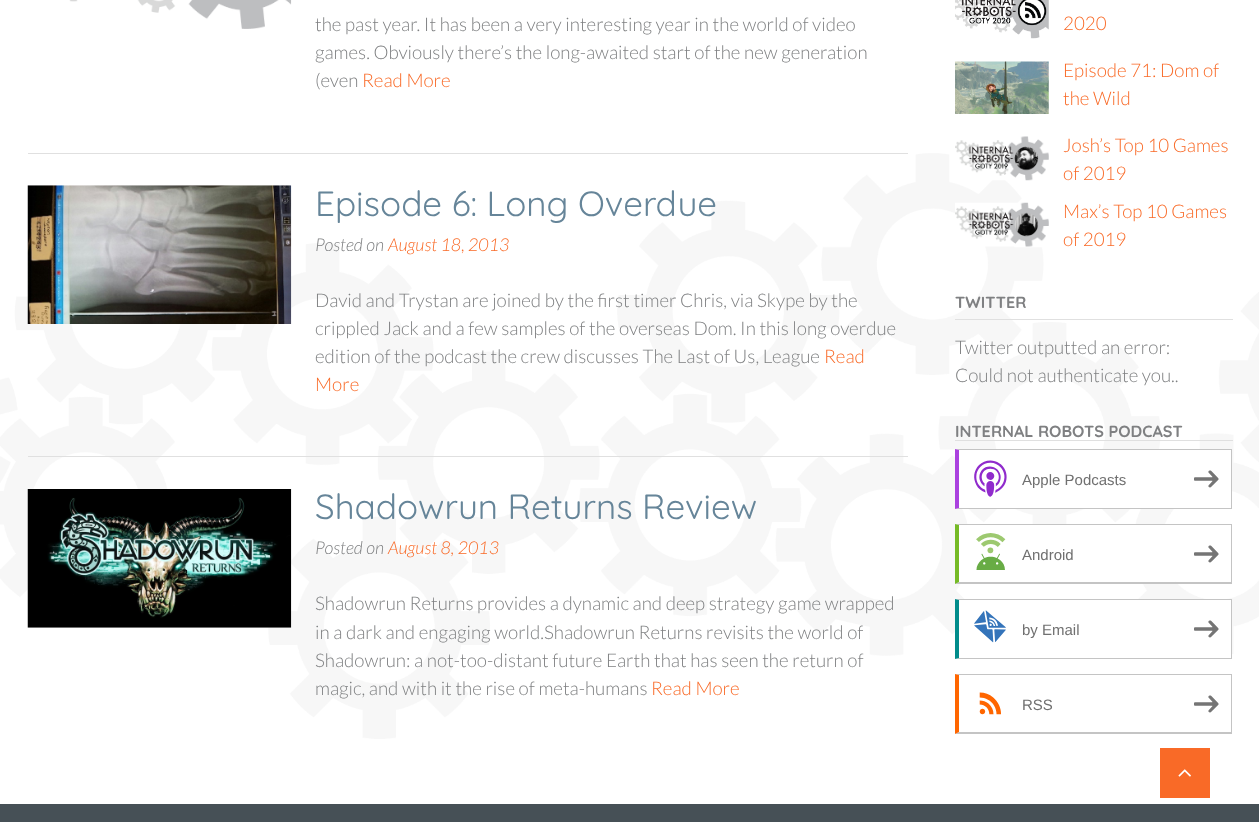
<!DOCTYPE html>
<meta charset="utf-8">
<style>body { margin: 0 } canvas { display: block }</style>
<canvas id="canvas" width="1259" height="822"></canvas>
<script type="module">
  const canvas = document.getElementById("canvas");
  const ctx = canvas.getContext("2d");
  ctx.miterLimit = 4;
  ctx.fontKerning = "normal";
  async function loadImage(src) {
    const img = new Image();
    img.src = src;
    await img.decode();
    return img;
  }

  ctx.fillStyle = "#ffffff";
  ctx.fillRect(0, 0, 1259, 822);
  ctx.drawImage(await loadImage("img1.png"), 0, 153, 1259, 586);
  ctx.fillStyle = "#e0e0e0";
  ctx.fillRect(28, 153, 880, 1);
  ctx.drawImage(await loadImage("img2.png"), 69, 0, 223, 29);
  ctx.font = "300 18.75px Lato";
  ctx.fillStyle = "#7f8082";
  ctx.fillText("the past year. It has been a very interesting year in the world of video", 315, 31);
  ctx.fillText("games. Obviously there’s the long-awaited start of the new generation", 315, 59);
  ctx.fillText("(even", 315, 87);
  ctx.fillStyle = "#f96a27";
  ctx.fillText("Read More", 362, 87);
  ctx.fillStyle = "#e0e0e0";
  ctx.fillRect(28, 456, 880, 1);
  ctx.drawImage(await loadImage("img3.png"), 27, 185, 265, 139);
  ctx.font = "35px Quicksand";
  ctx.fillStyle = "#668599";
  ctx.fillText("Episode 6: Long Overdue", 315, 216);
  ctx.font = "italic 300 17.75px Lato";
  ctx.fillStyle = "#7f8082";
  ctx.fillText("Posted on", 315, 251);
  ctx.fillStyle = "#f96a27";
  ctx.fillText("August 18, 2013", 388, 251);
  ctx.font = "300 18.75px Lato";
  ctx.fillStyle = "#7f8082";
  ctx.fillText("David and Trystan are joined by the first timer Chris, via Skype by the", 315, 307);
  ctx.fillText("crippled Jack and a few samples of the overseas Dom. In this long overdue", 315, 335);
  ctx.fillText("edition of the podcast the crew discusses The Last of Us, League", 315, 363);
  ctx.fillStyle = "#f96a27";
  ctx.fillText("Read", 824, 363);
  ctx.fillText("More", 315, 391);
  ctx.drawImage(await loadImage("img4.png"), 27, 489, 265, 139);
  ctx.font = "35px Quicksand";
  ctx.fillStyle = "#668599";
  ctx.fillText("Shadowrun Returns Review", 315, 519);
  ctx.font = "italic 300 17.75px Lato";
  ctx.fillStyle = "#7f8082";
  ctx.fillText("Posted on", 315, 554);
  ctx.fillStyle = "#f96a27";
  ctx.fillText("August 8, 2013", 388, 554);
  ctx.font = "300 18.75px Lato";
  ctx.fillStyle = "#7f8082";
  ctx.fillText("Shadowrun Returns provides a dynamic and deep strategy game wrapped", 315, 610);
  ctx.fillText("in a dark and engaging world.Shadowrun Returns revisits the world of", 315, 639);
  ctx.fillText("Shadowrun: a not-too-distant future Earth that has seen the return of", 315, 667);
  ctx.fillText("magic, and with it the rise of meta-humans", 315, 695);
  ctx.fillStyle = "#f96a27";
  ctx.fillText("Read More", 651, 695);
  ctx.drawImage(await loadImage("img5.png"), 955, 0, 94, 39);
  ctx.fillText("2020", 1063, 30);
  ctx.drawImage(await loadImage("img6.png"), 955, 61, 94, 53);
  ctx.fillText("Episode 71: Dom of", 1063, 77);
  ctx.fillText("the Wild", 1063, 105);
  ctx.drawImage(await loadImage("img7.png"), 955, 136, 94, 45);
  ctx.fillText("Josh’s Top 10 Games", 1063, 152);
  ctx.fillText("of 2019", 1063, 180);
  ctx.drawImage(await loadImage("img8.png"), 955, 202, 94, 45);
  ctx.fillText("Max’s Top 10 Games", 1063, 218);
  ctx.fillText("of 2019", 1063, 246);
  ctx.fillStyle = "#e0e0e0";
  ctx.fillRect(955, 319, 278, 1);
  ctx.font = "bold 16.25px Quicksand";
  ctx.fillStyle = "#7f8082";
  ctx.fillText("TWITTER", 955, 308);
  ctx.font = "300 18.75px Lato";
  ctx.fillText("Twitter outputted an error:", 955, 354);
  ctx.fillText("Could not authenticate you..", 955, 382);
  ctx.fillStyle = "#e0e0e0";
  ctx.fillRect(955, 440, 278, 1);
  ctx.font = "bold 16.25px Quicksand";
  ctx.fillStyle = "#7f8082";
  ctx.fillText("INTERNAL ROBOTS PODCAST", 955, 437);
  ctx.fillStyle = "#ffffff";
  ctx.fillRect(959, 450, 272, 58);
  ctx.fillStyle = "#c4c4c4";
  ctx.beginPath();
  ctx.moveTo(955, 449);
  ctx.lineTo(1232, 449);
  ctx.lineTo(1231, 450);
  ctx.lineTo(959, 450);
  ctx.closePath();
  ctx.fill();
  ctx.fillRect(1231, 449, 1, 60);
  ctx.beginPath();
  ctx.moveTo(1232, 509);
  ctx.lineTo(955, 509);
  ctx.lineTo(959, 508);
  ctx.lineTo(1231, 508);
  ctx.closePath();
  ctx.fill();
  ctx.fillStyle = "#ab42df";
  ctx.beginPath();
  ctx.moveTo(955, 509);
  ctx.lineTo(955, 449);
  ctx.lineTo(959, 450);
  ctx.lineTo(959, 508);
  ctx.closePath();
  ctx.fill();
  ctx.drawImage(await loadImage("img9.png"), 974, 460, 33, 37);
  ctx.font = "15px Liberation Sans";
  ctx.fillStyle = "#707070";
  ctx.fillText("Apple Podcasts", 1022, 485);
  ctx.drawImage(await loadImage("img10.png"), 1194, 470, 25, 18);
  ctx.fillStyle = "#ffffff";
  ctx.fillRect(959, 525, 216, 57);
  ctx.fillStyle = "#c4c4c4";
  ctx.beginPath();
  ctx.moveTo(955, 524);
  ctx.lineTo(1232, 524);
  ctx.lineTo(1231, 525);
  ctx.lineTo(959, 525);
  ctx.closePath();
  ctx.fill();
  ctx.fillRect(1231, 524, 1, 60);
  ctx.beginPath();
  ctx.moveTo(1232, 584);
  ctx.lineTo(955, 584);
  ctx.lineTo(959, 582);
  ctx.lineTo(1231, 582);
  ctx.closePath();
  ctx.fill();
  ctx.fillStyle = "#75ba26";
  ctx.beginPath();
  ctx.moveTo(955, 584);
  ctx.lineTo(955, 524);
  ctx.lineTo(959, 525);
  ctx.lineTo(959, 582);
  ctx.closePath();
  ctx.fill();
  ctx.drawImage(await loadImage("img11.png"), 976, 533, 30, 37);
  ctx.fillStyle = "#707070";
  ctx.fillText("Android", 1022, 560);
  ctx.drawImage(await loadImage("img12.png"), 1194, 545, 25, 18);
  ctx.fillStyle = "#ffffff";
  ctx.fillRect(959, 600, 272, 56);
  ctx.fillStyle = "#c4c4c4";
  ctx.beginPath();
  ctx.moveTo(955, 599);
  ctx.lineTo(1232, 599);
  ctx.lineTo(1231, 600);
  ctx.lineTo(959, 600);
  ctx.closePath();
  ctx.fill();
  ctx.fillRect(1231, 599, 1, 60);
  ctx.beginPath();
  ctx.moveTo(1232, 659);
  ctx.lineTo(955, 659);
  ctx.lineTo(959, 658);
  ctx.lineTo(1231, 658);
  ctx.closePath();
  ctx.fill();
  ctx.fillStyle = "#018c8b";
  ctx.beginPath();
  ctx.moveTo(955, 659);
  ctx.lineTo(955, 599);
  ctx.lineTo(959, 600);
  ctx.lineTo(959, 658);
  ctx.closePath();
  ctx.fill();
  ctx.drawImage(await loadImage("img13.png"), 974, 610, 32, 33);
  ctx.fillStyle = "#707070";
  ctx.fillText("by Email", 1022, 635);
  ctx.drawImage(await loadImage("img10.png"), 1194, 620, 25, 18);
  ctx.fillStyle = "#c4c4c4";
  ctx.beginPath();
  ctx.moveTo(955, 674);
  ctx.lineTo(1232, 674);
  ctx.lineTo(1231, 675);
  ctx.lineTo(959, 675);
  ctx.closePath();
  ctx.fill();
  ctx.fillRect(1231, 674, 1, 60);
  ctx.beginPath();
  ctx.moveTo(1232, 734);
  ctx.lineTo(955, 734);
  ctx.lineTo(959, 732);
  ctx.lineTo(1231, 732);
  ctx.closePath();
  ctx.fill();
  ctx.fillStyle = "#ff6600";
  ctx.beginPath();
  ctx.moveTo(955, 734);
  ctx.lineTo(955, 674);
  ctx.lineTo(959, 675);
  ctx.lineTo(959, 732);
  ctx.closePath();
  ctx.fill();
  ctx.drawImage(await loadImage("img14.png"), 979, 692, 22, 23);
  ctx.fillStyle = "#707070";
  ctx.fillText("RSS", 1022, 710);
  ctx.drawImage(await loadImage("img10.png"), 1194, 695, 25, 18);
  ctx.fillStyle = "#f96a27";
  ctx.fillRect(1160, 748, 50, 50);
  ctx.drawImage(await loadImage("img15.png"), 1178, 769, 13, 8);
  ctx.fillStyle = "#465056";
  ctx.fillRect(0, 804, 1259, 18);
</script>
